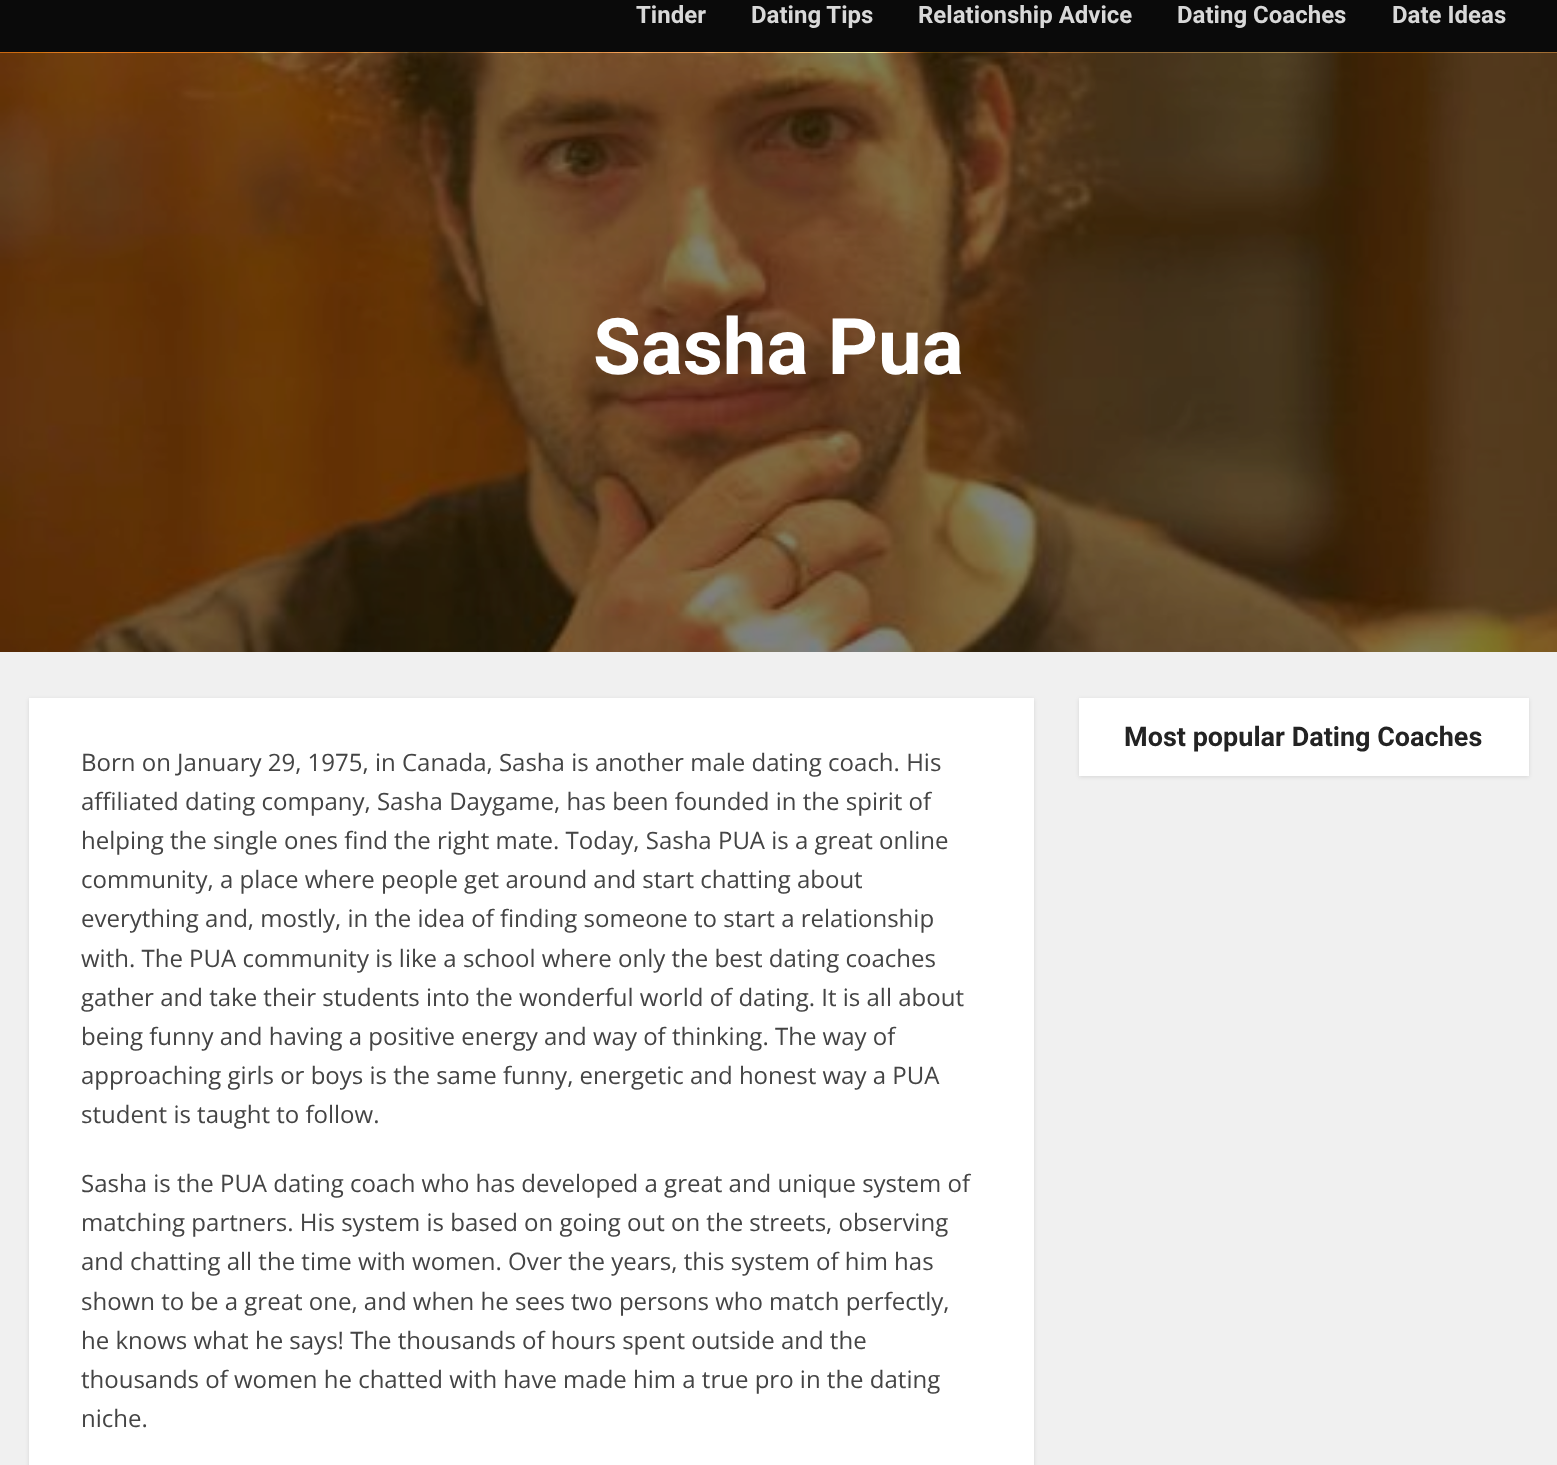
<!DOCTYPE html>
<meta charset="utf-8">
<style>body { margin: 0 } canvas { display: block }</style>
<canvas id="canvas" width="1557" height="1465"></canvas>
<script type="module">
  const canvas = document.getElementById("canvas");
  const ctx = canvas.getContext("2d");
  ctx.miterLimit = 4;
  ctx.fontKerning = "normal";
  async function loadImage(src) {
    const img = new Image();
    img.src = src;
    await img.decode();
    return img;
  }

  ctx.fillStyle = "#f0f0f0";
  ctx.fillRect(0, 0, 1557, 1465);
  ctx.fillStyle = "#0a0a0a";
  ctx.fillRect(0, 0, 1557, 52);
  ctx.font = "bold 24px Roboto";
  ctx.fillStyle = "#d8d8d8";
  ctx.fillText("Tinder", 636, 23);
  ctx.fillText("Dating Tips", 751, 23);
  ctx.fillText("Relationship Advice", 918, 23);
  ctx.fillText("Dating Coaches", 1177, 23);
  ctx.fillText("Date Ideas", 1392, 23);
  ctx.drawImage(await loadImage("img1.png"), 0, 52, 1557, 600);
  ctx.font = "bold 78px Roboto";
  ctx.fillStyle = "#ffffff";
  ctx.fillText("Sasha Pua", 593, 374);
  ctx.fillStyle = "rgba(0, 0, 0, 0.1)";
  ctx.filter = "blur(2px)";
  ctx.beginPath();
  ctx.rect(1079, 699, 450, 78);
  ctx.fill();
  ctx.filter = "none";
  ctx.fillStyle = "#ffffff";
  ctx.fillRect(1079, 698, 450, 78);
  ctx.font = "bold 27px Roboto";
  ctx.fillStyle = "#232323";
  ctx.fillText("Most popular Dating Coaches", 1124, 746);
  ctx.fillStyle = "rgba(0, 0, 0, 0.1)";
  ctx.filter = "blur(2px)";
  ctx.beginPath();
  ctx.rect(29, 699, 1005, 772);
  ctx.fill();
  ctx.filter = "none";
  ctx.fillStyle = "#ffffff";
  ctx.fillRect(29, 698, 1005, 767);
  ctx.font = "24px Open Sans";
  ctx.fillStyle = "#444444";
  ctx.fillText("Born on January 29, 1975, in Canada, Sasha is another male dating coach. His", 81, 771);
  ctx.fillText("affiliated dating company, Sasha Daygame, has been founded in the spirit of", 81, 810);
  ctx.fillText("helping the single ones find the right mate. Today, Sasha PUA is a great online", 81, 849);
  ctx.fillText("community, a place where people get around and start chatting about", 81, 888);
  ctx.fillText("everything and, mostly, in the idea of finding someone to start a relationship", 81, 927);
  ctx.fillText("with. The PUA community is like a school where only the best dating coaches", 81, 967);
  ctx.fillText("gather and take their students into the wonderful world of dating. It is all about", 81, 1006);
  ctx.fillText("being funny and having a positive energy and way of thinking. The way of", 81, 1045);
  ctx.fillText("approaching girls or boys is the same funny, energetic and honest way a PUA", 81, 1084);
  ctx.fillText("student is taught to follow.", 81, 1123);
  ctx.fillText("Sasha is the PUA dating coach who has developed a great and unique system of", 81, 1192);
  ctx.fillText("matching partners. His system is based on going out on the streets, observing", 81, 1231);
  ctx.fillText("and chatting all the time with women. Over the years, this system of him has", 81, 1270);
  ctx.fillText("shown to be a great one, and when he sees two persons who match perfectly,", 81, 1310);
  ctx.fillText("he knows what he says! The thousands of hours spent outside and the", 81, 1349);
  ctx.fillText("thousands of women he chatted with have made him a true pro in the dating", 81, 1388);
  ctx.fillText("niche.", 81, 1427);
</script>
